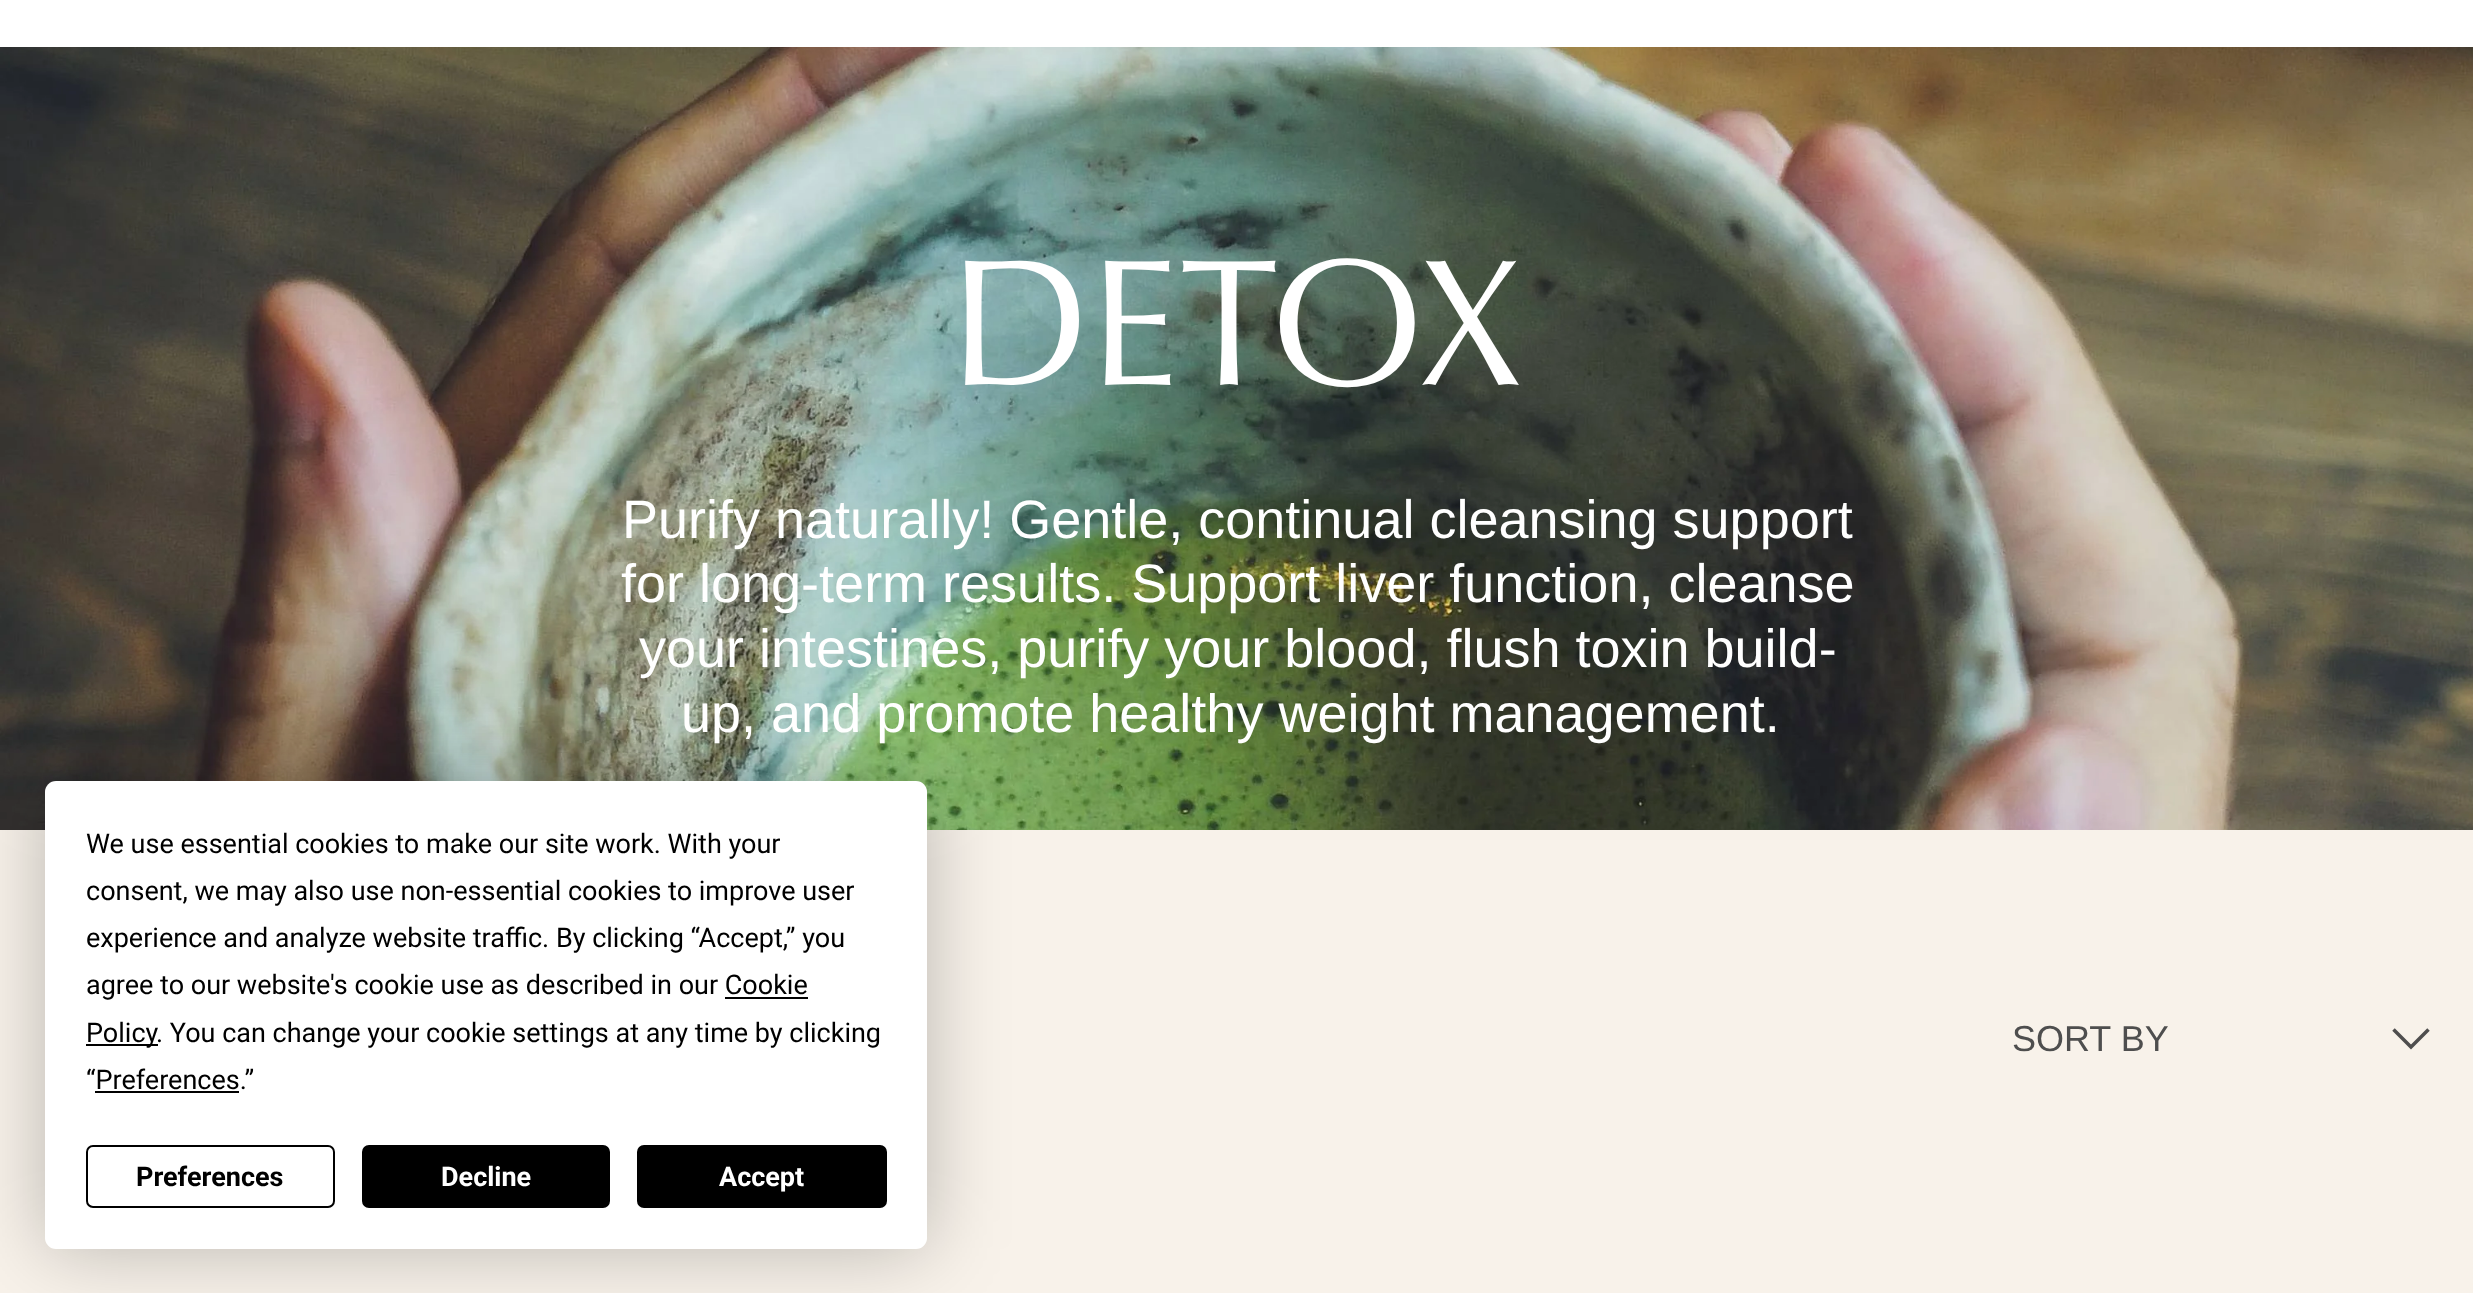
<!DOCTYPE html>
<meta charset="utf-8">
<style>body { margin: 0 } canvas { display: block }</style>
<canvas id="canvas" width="2473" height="1293"></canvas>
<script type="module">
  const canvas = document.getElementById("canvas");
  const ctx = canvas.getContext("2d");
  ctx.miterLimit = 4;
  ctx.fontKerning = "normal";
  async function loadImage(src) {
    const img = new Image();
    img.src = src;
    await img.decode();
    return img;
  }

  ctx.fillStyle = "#ffffff";
  ctx.fillRect(0, 0, 2473, 1293);
  ctx.fillStyle = "#f8f2ea";
  ctx.fillRect(0, 830, 2473, 463);
  ctx.drawImage(await loadImage("img1.png"), 0, 47, 2473, 783);
  ctx.fillStyle = "rgba(0, 0, 0, 0.25)";
  ctx.filter = "blur(39.5px)";
  ctx.beginPath();
  ctx.roundRect(45, 781, 882, 468, 11);
  ctx.fill();
  ctx.filter = "none";
  ctx.fillStyle = "#ffffff";
  ctx.beginPath();
  ctx.roundRect(45, 781, 882, 468, 11);
  ctx.fill();
  ctx.font = "27px Roboto";
  ctx.fillStyle = "#000000";
  ctx.fillText("We use essential cookies to make our site work. With your", 86, 853);
  ctx.fillText("consent, we may also use non-essential cookies to improve user", 86, 900);
  ctx.fillText("experience and analyze website traffic. By clicking “Accept,” you", 86, 947);
  ctx.fillText("agree to our website's cookie use as described in our Cookie", 86, 994);
  ctx.fillRect(86, 1044, 72, 2);
  ctx.fillText("Policy", 86, 1042);
  ctx.fillRect(725, 997, 83, 2);
  ctx.fillText(". You can change your cookie settings at any time by clicking", 156, 1042);
  ctx.fillText("“Preferences.”", 86, 1089);
  ctx.fillRect(95, 1091, 144, 2);
  ctx.beginPath();
  ctx.roundRect(87, 1146, 247, 61, 6);
  ctx.strokeStyle = "#000000";
  ctx.lineWidth = 2;
  ctx.stroke();
  ctx.font = "bold 27px Roboto";
  ctx.fillText("Preferences", 136, 1186);
  ctx.beginPath();
  ctx.roundRect(363, 1146, 246, 61, 6);
  ctx.fill();
  ctx.stroke();
  ctx.fillStyle = "#ffffff";
  ctx.fillText("Decline", 441, 1186);
  ctx.fillStyle = "#000000";
  ctx.beginPath();
  ctx.roundRect(638, 1146, 248, 61, 6);
  ctx.fill();
  ctx.stroke();
  ctx.fillStyle = "#ffffff";
  ctx.fillText("Accept", 719, 1186);
  ctx.font = "180px Optima";
  ctx.fillText("DETOX", 949, 384);
  ctx.font = "54px Liberation Sans";
  ctx.fillText("Purify naturally! Gentle, continual cleansing support", 622, 538);
  ctx.fillText("for long-term results. Support liver function, cleanse", 621, 602);
  ctx.fillText("your intestines, purify your blood, flush toxin build-", 639, 667);
  ctx.fillText("up, and promote healthy weight management.", 681, 732);
  ctx.beginPath();
  ctx.moveTo(2428.5, 1029.5);
  ctx.lineTo(2411, 1047);
  ctx.lineTo(2393.5, 1029.5);
  ctx.strokeStyle = "#4f4e4e";
  ctx.lineWidth = 3.5;
  ctx.stroke();
  ctx.font = "36px Liberation Sans";
  ctx.fillStyle = "#4e4e4e";
  ctx.fillText("SORT BY", 2012, 1051);
</script>
